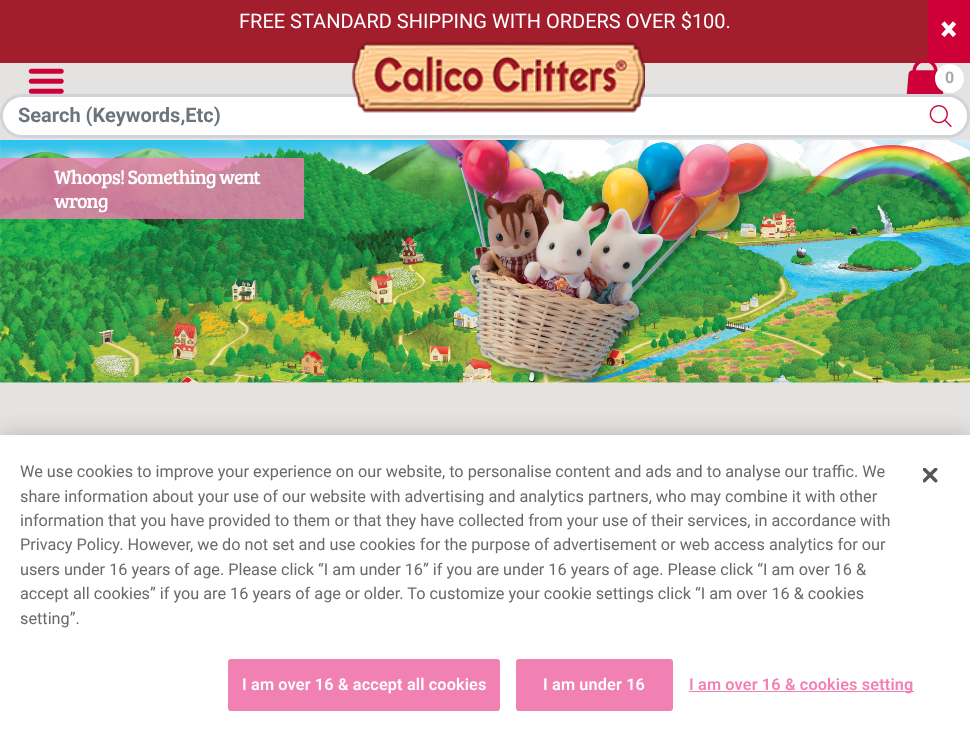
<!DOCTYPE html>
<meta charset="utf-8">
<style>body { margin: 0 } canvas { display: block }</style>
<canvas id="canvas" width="970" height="731"></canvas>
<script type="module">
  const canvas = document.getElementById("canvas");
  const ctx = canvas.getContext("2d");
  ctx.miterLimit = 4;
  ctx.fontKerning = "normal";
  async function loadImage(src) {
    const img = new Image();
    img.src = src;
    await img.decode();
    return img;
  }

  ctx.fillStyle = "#e4e3e2";
  ctx.fillRect(0, 0, 970, 731);
  ctx.fillStyle = "#a21e2c";
  ctx.fillRect(0, 0, 928, 63);
  ctx.font = "20px Roboto";
  ctx.fillStyle = "#ffffff";
  ctx.fillText("FREE STANDARD SHIPPING WITH ORDERS OVER $100.", 239, 28);
  ctx.fillStyle = "#cf0037";
  ctx.fillRect(928, 0, 42, 63);
  ctx.drawImage(await loadImage("img1.png"), 941, 21, 15, 16);
  ctx.fillStyle = "#ffffff";
  ctx.beginPath();
  ctx.roundRect(1.5, 95.5, 967, 41, 20.5);
  ctx.fill();
  ctx.strokeStyle = "#ced4da";
  ctx.lineWidth = 3;
  ctx.stroke();
  ctx.drawImage(await loadImage("img2.png"), 351, 42, 294, 71);
  ctx.drawImage(await loadImage("img3.png"), 28, 68, 36, 26);
  ctx.drawImage(await loadImage("img4.png"), 906, 59, 38, 35);
  ctx.beginPath();
  ctx.arc(949.5, 78.5, 14.5, 0, Math.PI * 2);
  ctx.fill();
  ctx.font = "bold 16px Roboto";
  ctx.fillStyle = "#a7a9ac";
  ctx.fillText("0", 945, 83);
  ctx.font = "bold 20px Roboto";
  ctx.fillStyle = "#6c757d";
  ctx.fillText("Search (Keywords,Etc)", 18, 122);
  ctx.drawImage(await loadImage("img5.png"), 929, 105, 23, 23);
  ctx.drawImage(await loadImage("img6.png"), 0, 140, 970, 243);
  ctx.fillStyle = "rgba(242, 129, 179, 0.8)";
  ctx.fillRect(35, 158, 269, 61);
  ctx.fillRect(0, 158, 35, 61);
  ctx.letterSpacing = "-0.9px";
  ctx.font = "20px Bree Serif";
  ctx.fillStyle = "#ffffff";
  ctx.fillText("Whoops! Something went", 54, 184);
  ctx.fillText("wrong", 54, 208);
  ctx.fillStyle = "rgba(0, 0, 0, 0.2)";
  ctx.filter = "blur(11px)";
  ctx.beginPath();
  ctx.rect(0, 435, 970, 296);
  ctx.fill();
  ctx.filter = "none";
  ctx.fillStyle = "#ffffff";
  ctx.fillRect(0, 435, 970, 296);
  ctx.letterSpacing = "0px";
  ctx.font = "16.25px Roboto";
  ctx.fillStyle = "#696969";
  ctx.fillText("We use cookies to improve your experience on our website, to personalise content and ads and to analyse our traffic. We", 20, 477);
  ctx.fillText("share information about your use of our website with advertising and analytics partners, who may combine it with other", 20, 502);
  ctx.fillText("information that you have provided to them or that they have collected from your use of their services, in accordance with", 20, 526);
  ctx.fillText("Privacy Policy. However, we do not set and use cookies for the purpose of advertisement or web access analytics for our", 20, 550);
  ctx.fillText("users under 16 years of age. Please click “I am under 16” if you are under 16 years of age. Please click “I am over 16 &", 20, 575);
  ctx.fillText("accept all cookies” if you are 16 years of age or older. To customize your cookie settings click “I am over 16 & cookies", 20, 599);
  ctx.fillText("setting”.", 20, 624);
  ctx.fillStyle = "#f281b3";
  ctx.beginPath();
  ctx.roundRect(228.5, 659.5, 271, 51, 2);
  ctx.fill();
  ctx.strokeStyle = "#f281b3";
  ctx.lineWidth = 1;
  ctx.stroke();
  ctx.letterSpacing = "0.15px";
  ctx.font = "600 16.25px Roboto";
  ctx.fillStyle = "#ffffff";
  ctx.fillText("I am over 16 & accept all cookies", 242, 690);
  ctx.fillStyle = "#f281b3";
  ctx.beginPath();
  ctx.roundRect(516.5, 659.5, 156, 51, 2);
  ctx.fill();
  ctx.stroke();
  ctx.fillStyle = "#ffffff";
  ctx.fillText("I am under 16", 543, 690);
  ctx.fillStyle = "#f281b3";
  ctx.fillRect(689, 691, 225, 1);
  ctx.fillText("I am over 16 & cookies setting", 689, 690);
  ctx.drawImage(await loadImage("img7.png"), 923, 468, 15, 15);
</script>
